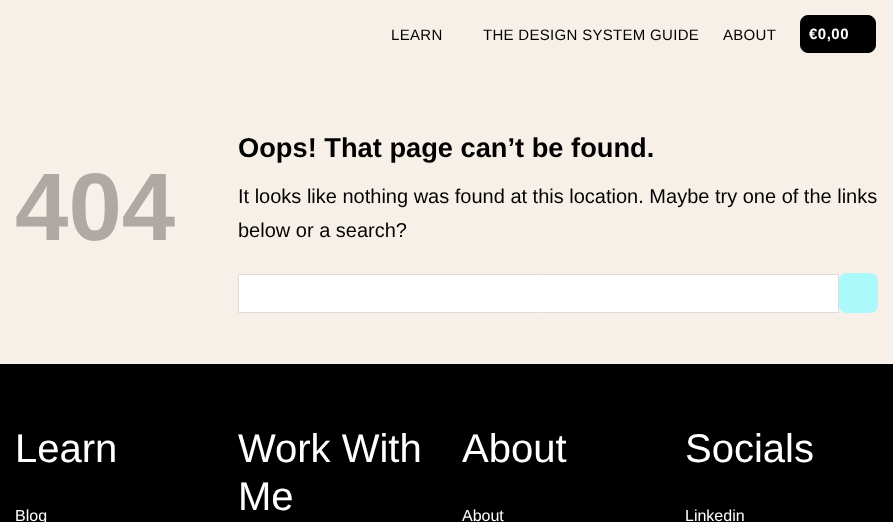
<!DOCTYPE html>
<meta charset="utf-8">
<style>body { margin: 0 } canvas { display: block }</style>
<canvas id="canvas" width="893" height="522"></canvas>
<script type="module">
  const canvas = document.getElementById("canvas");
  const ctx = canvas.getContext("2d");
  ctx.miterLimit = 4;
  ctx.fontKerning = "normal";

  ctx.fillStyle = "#f7f0e9";
  ctx.fillRect(0, 0, 893, 522);
  ctx.letterSpacing = "0.3px";
  ctx.font = "15px Liberation Sans";
  ctx.fillStyle = "#020202";
  ctx.fillText("LEARN", 391, 40);
  ctx.fillText("THE DESIGN SYSTEM GUIDE", 483, 40);
  ctx.fillText("ABOUT", 723, 40);
  ctx.fillStyle = "#000000";
  ctx.beginPath();
  ctx.roundRect(800.5, 15.5, 75, 37, 7.5);
  ctx.fill();
  ctx.strokeStyle = "#000000";
  ctx.stroke();
  ctx.letterSpacing = "0.5px";
  ctx.font = "bold 15px Liberation Sans";
  ctx.fillStyle = "#ffffff";
  ctx.fillText("€0,00", 809, 39);
  ctx.letterSpacing = "0px";
  ctx.font = "bold 96px Liberation Sans";
  ctx.fillStyle = "#aea9a4";
  ctx.fillText("404", 15, 240);
  ctx.font = "bold 27.25px Liberation Sans";
  ctx.fillStyle = "#020202";
  ctx.fillText("Oops! That page can’t be found.", 238, 157);
  ctx.font = "20px Liberation Sans";
  ctx.fillText("It looks like nothing was found at this location. Maybe try one of the links", 238, 203);
  ctx.fillText("below or a search?", 238, 237);
  ctx.fillStyle = "#ffffff";
  ctx.beginPath();
  ctx.rect(238.5, 274.5, 600, 38);
  ctx.fill();
  ctx.strokeStyle = "#dddddd";
  ctx.stroke();
  ctx.fillStyle = "#acf9fc";
  ctx.beginPath();
  ctx.roundRect(839, 273, 39, 40, 8);
  ctx.fill();
  ctx.fillStyle = "#000000";
  ctx.fillRect(0, 364, 893, 158);
  ctx.font = "40px Liberation Sans";
  ctx.fillStyle = "#ffffff";
  ctx.fillText("Learn", 15, 462);
  ctx.font = "16px Liberation Sans";
  ctx.fillText("Blog", 15, 521);
  ctx.font = "40px Liberation Sans";
  ctx.fillText("Work With", 238, 462);
  ctx.fillText("Me", 238, 510);
  ctx.fillText("About", 462, 462);
  ctx.font = "16px Liberation Sans";
  ctx.fillText("About", 462, 521);
  ctx.font = "40px Liberation Sans";
  ctx.fillText("Socials", 685, 462);
  ctx.font = "16px Liberation Sans";
  ctx.fillText("Linkedin", 685, 521);
</script>
